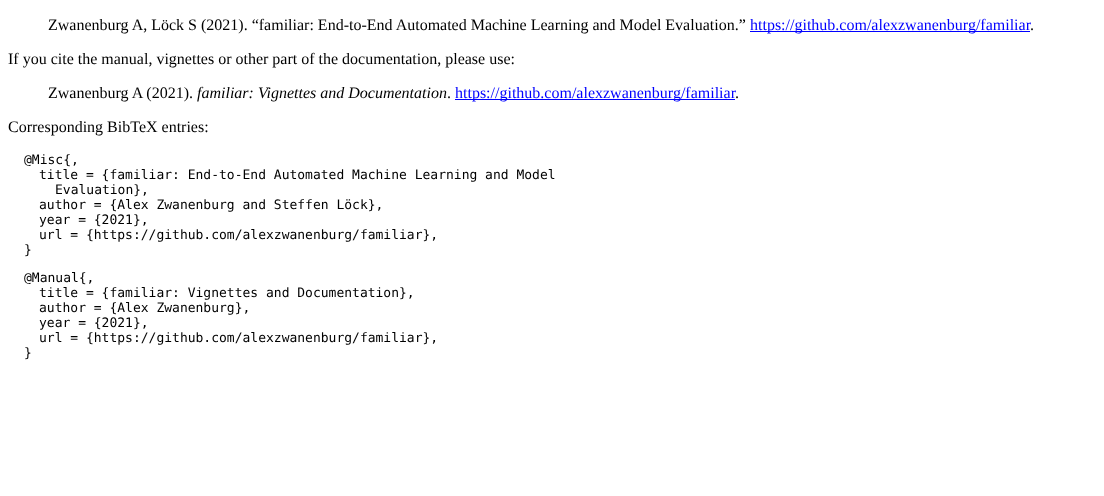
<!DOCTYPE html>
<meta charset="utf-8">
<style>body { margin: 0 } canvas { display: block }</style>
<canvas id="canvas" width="1104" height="496"></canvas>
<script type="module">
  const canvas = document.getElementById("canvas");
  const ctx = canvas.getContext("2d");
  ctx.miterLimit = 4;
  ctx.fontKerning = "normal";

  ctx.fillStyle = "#ffffff";
  ctx.fillRect(0, 0, 1104, 496);
  ctx.font = "16px Liberation Serif";
  ctx.fillStyle = "#000000";
  ctx.fillText("Zwanenburg A, Löck S (2021). “familiar: End-to-End Automated Machine Learning and Model Evaluation.”", 48, 30);
  ctx.fillStyle = "#0000ff";
  ctx.fillRect(750, 31, 280, 1);
  ctx.fillText("https://github.com/alexzwanenburg/familiar", 750, 30);
  ctx.fillStyle = "#000000";
  ctx.fillText(".", 1030, 30);
  ctx.fillText("If you cite the manual, vignettes or other part of the documentation, please use:", 8, 64);
  ctx.fillText("Zwanenburg A (2021).", 48, 98);
  ctx.font = "italic 16px Liberation Serif";
  ctx.fillText("familiar: Vignettes and Documentation", 197, 98);
  ctx.font = "16px Liberation Serif";
  ctx.fillText(".", 447, 98);
  ctx.fillStyle = "#0000ff";
  ctx.fillRect(455, 99, 280, 1);
  ctx.fillText("https://github.com/alexzwanenburg/familiar", 455, 98);
  ctx.fillStyle = "#000000";
  ctx.fillText(".", 735, 98);
  ctx.fillText("Corresponding BibTeX entries:", 8, 132);
  ctx.font = "13px DejaVu Sans Mono";
  ctx.fillText("@Misc{,", 24, 164);
  ctx.fillText("title = {familiar: End-to-End Automated Machine Learning and Model", 39, 179);
  ctx.fillText("Evaluation},", 55, 194);
  ctx.fillText("author = {Alex Zwanenburg and Steffen Löck},", 39, 209);
  ctx.fillText("year = {2021},", 39, 224);
  ctx.fillText("url = {https://github.com/alexzwanenburg/familiar},", 39, 239);
  ctx.fillText("}", 24, 254);
  ctx.fillText("@Manual{,", 24, 282);
  ctx.fillText("title = {familiar: Vignettes and Documentation},", 39, 297);
  ctx.fillText("author = {Alex Zwanenburg},", 39, 312);
  ctx.fillText("year = {2021},", 39, 327);
  ctx.fillText("url = {https://github.com/alexzwanenburg/familiar},", 39, 342);
  ctx.fillText("}", 24, 357);
</script>
